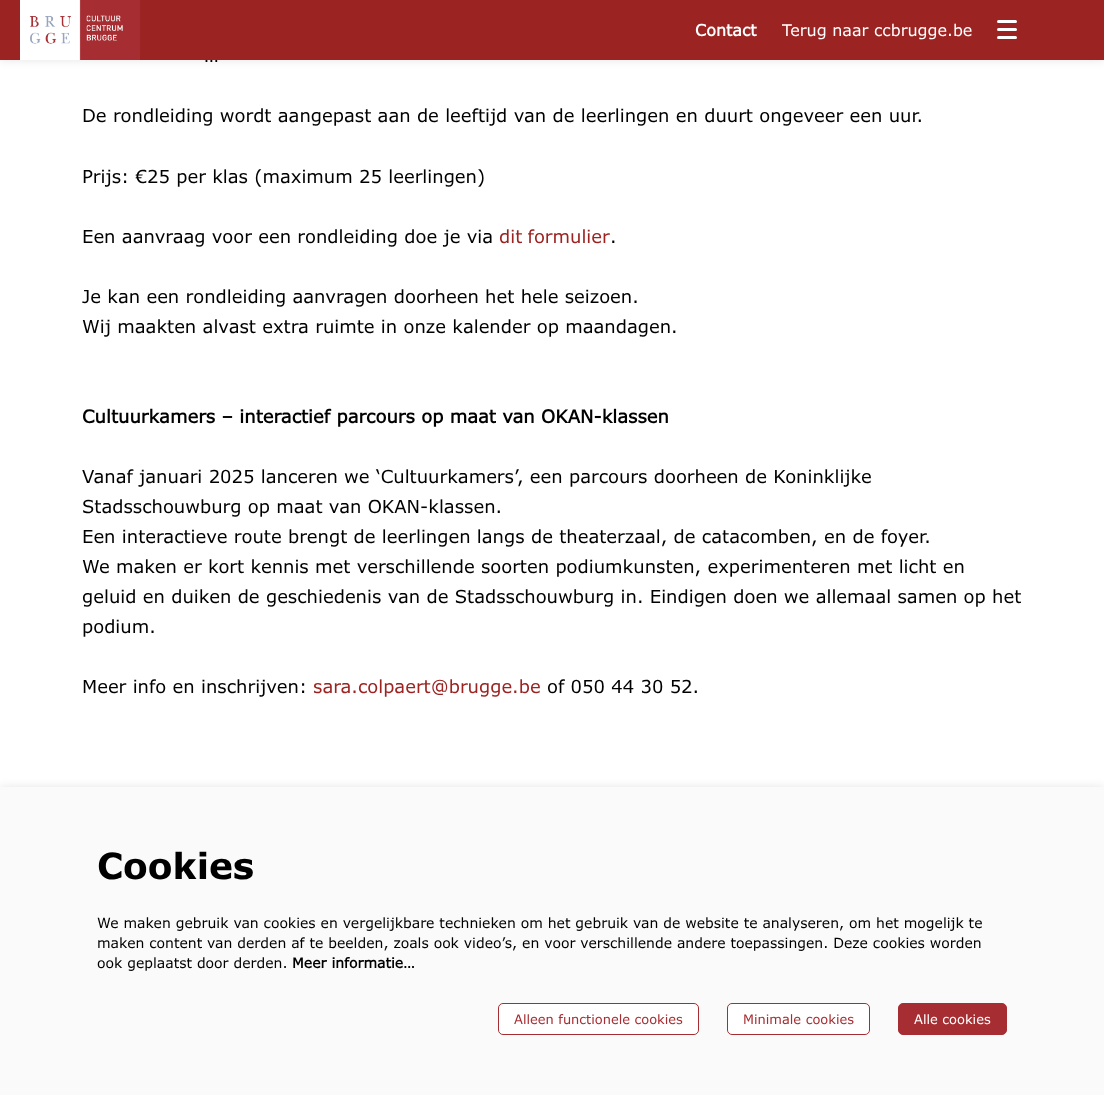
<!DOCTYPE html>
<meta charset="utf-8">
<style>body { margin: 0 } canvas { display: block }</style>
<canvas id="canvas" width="1104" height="1095"></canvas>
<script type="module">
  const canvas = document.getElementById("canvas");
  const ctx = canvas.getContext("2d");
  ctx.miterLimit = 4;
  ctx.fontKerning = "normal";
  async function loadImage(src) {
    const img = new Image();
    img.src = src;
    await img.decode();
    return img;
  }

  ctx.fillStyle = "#ffffff";
  ctx.fillRect(0, 0, 1104, 1095);
  ctx.fillStyle = "rgba(0, 0, 0, 0.1)";
  ctx.filter = "blur(5px)";
  ctx.beginPath();
  ctx.rect(0, 0, 1104, 60);
  ctx.fill();
  ctx.filter = "none";
  ctx.fillStyle = "#9b2321";
  ctx.fillRect(0, 0, 1104, 60);
  ctx.drawImage(await loadImage("img1.png"), 20, 0, 120, 60);
  ctx.font = "bold 16px Verdana";
  ctx.fillStyle = "#ffffff";
  ctx.fillText("Contact", 695, 36);
  ctx.font = "16px Verdana";
  ctx.fillText("Terug naar ccbrugge.be", 782, 36);
  ctx.beginPath();
  ctx.roundRect(997, 20, 20, 3, 1.5);
  ctx.fill();
  ctx.beginPath();
  ctx.roundRect(997, 28, 20, 3, 1.5);
  ctx.fill();
  ctx.beginPath();
  ctx.roundRect(997, 36, 20, 3, 1.5);
  ctx.fill();
  ctx.font = "18px Verdana";
  ctx.fillStyle = "#000000";
  ctx.fillText("…", 204, 62);
  ctx.fillText("De rondleiding wordt aangepast aan de leeftijd van de leerlingen en duurt ongeveer een uur.", 82, 122);
  ctx.fillText("Prijs: €25 per klas (maximum 25 leerlingen)", 82, 183);
  ctx.fillText("Een aanvraag voor een rondleiding doe je via", 82, 243);
  ctx.wordSpacing = "-1px";
  ctx.fillStyle = "#9b2321";
  ctx.fillText("dit formulier", 499, 243);
  ctx.wordSpacing = "0px";
  ctx.fillStyle = "#000000";
  ctx.fillText(".", 610, 243);
  ctx.fillText("Je kan een rondleiding aanvragen doorheen het hele seizoen.", 82, 303);
  ctx.fillText("Wij maakten alvast extra ruimte in onze kalender op maandagen.", 82, 333);
  ctx.font = "bold 18px Verdana";
  ctx.fillText("Cultuurkamers – interactief parcours op maat van OKAN-klassen", 82, 423);
  ctx.font = "18px Verdana";
  ctx.fillText("Vanaf januari 2025 lanceren we ‘Cultuurkamers’, een parcours doorheen de Koninklijke", 82, 483);
  ctx.fillText("Stadsschouwburg op maat van OKAN-klassen.", 82, 513);
  ctx.fillText("Een interactieve route brengt de leerlingen langs de theaterzaal, de catacomben, en de foyer.", 82, 543);
  ctx.fillText("We maken er kort kennis met verschillende soorten podiumkunsten, experimenteren met licht en", 82, 573);
  ctx.fillText("geluid en duiken de geschiedenis van de Stadsschouwburg in. Eindigen doen we allemaal samen op het", 82, 603);
  ctx.fillText("podium.", 82, 633);
  ctx.fillText("Meer info en inschrijven:", 82, 693);
  ctx.fillStyle = "#9b2321";
  ctx.fillText("sara.colpaert@brugge.be", 313, 693);
  ctx.fillStyle = "#000000";
  ctx.fillText("of 050 44 30 52.", 547, 693);
  ctx.fillStyle = "rgba(0, 0, 0, 0.1)";
  ctx.filter = "blur(5px)";
  ctx.beginPath();
  ctx.rect(0, 787, 1104, 308);
  ctx.fill();
  ctx.filter = "none";
  ctx.fillStyle = "#fafafa";
  ctx.fillRect(0, 787, 1104, 308);
  ctx.font = "bold 36px 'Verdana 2'";
  ctx.fillStyle = "#000000";
  ctx.fillText("Cookies", 97, 879);
  ctx.font = "14px Verdana";
  ctx.fillText("We maken gebruik van cookies en vergelijkbare technieken om het gebruik van de website te analyseren, om het mogelijk te", 97, 928);
  ctx.fillText("maken content van derden af te beelden, zoals ook video’s, en voor verschillende andere toepassingen. Deze cookies worden", 97, 948);
  ctx.fillText("ook geplaatst door derden.", 97, 968);
  ctx.font = "bold 14px Verdana";
  ctx.fillText("Meer informatie…", 292, 968);
  ctx.fillStyle = "#ffffff";
  ctx.beginPath();
  ctx.roundRect(498.5, 1003.5, 200, 31, 4.5);
  ctx.fill();
  ctx.strokeStyle = "#a62e32";
  ctx.stroke();
  ctx.font = "13px Verdana";
  ctx.fillStyle = "#a62e32";
  ctx.fillText("Alleen functionele cookies", 514, 1024);
  ctx.fillStyle = "#ffffff";
  ctx.beginPath();
  ctx.roundRect(727.5, 1003.5, 142, 31, 4.5);
  ctx.fill();
  ctx.stroke();
  ctx.fillStyle = "#a62e32";
  ctx.fillText("Minimale cookies", 743, 1024);
  ctx.beginPath();
  ctx.roundRect(898.5, 1003.5, 108, 31, 4.5);
  ctx.fill();
  ctx.stroke();
  ctx.fillStyle = "#ffffff";
  ctx.fillText("Alle cookies", 914, 1024);
</script>
